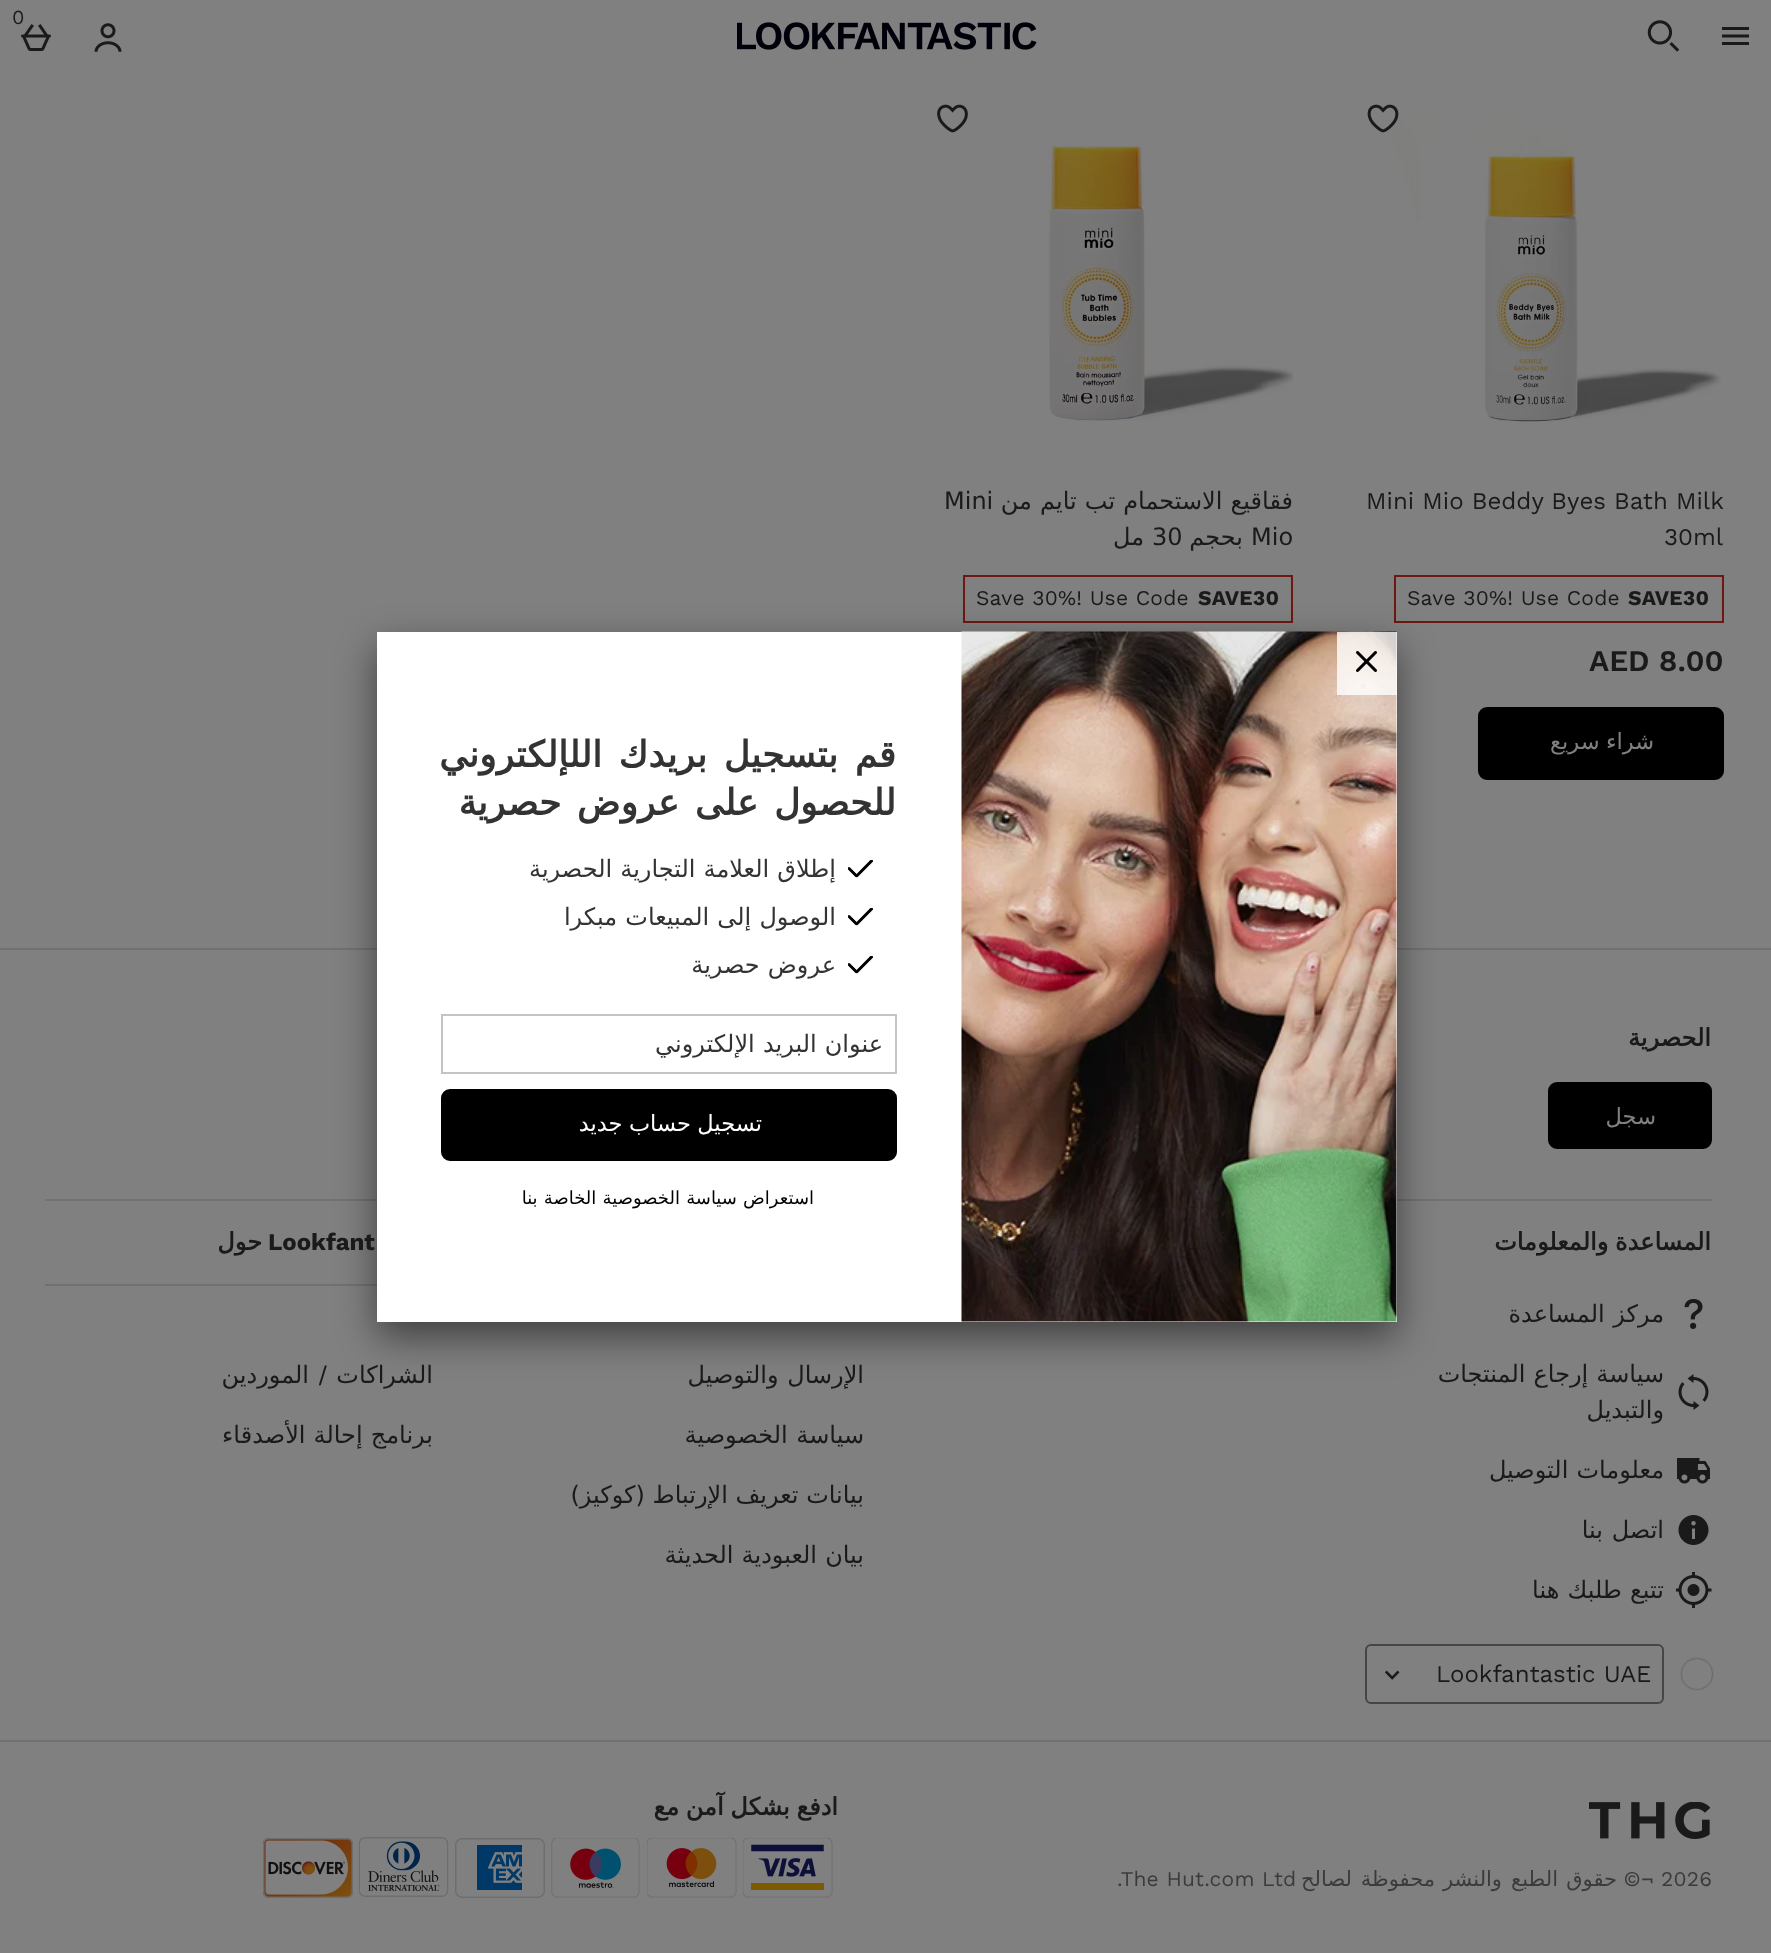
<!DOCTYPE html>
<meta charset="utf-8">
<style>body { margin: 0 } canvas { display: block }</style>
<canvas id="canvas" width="1771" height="1953"></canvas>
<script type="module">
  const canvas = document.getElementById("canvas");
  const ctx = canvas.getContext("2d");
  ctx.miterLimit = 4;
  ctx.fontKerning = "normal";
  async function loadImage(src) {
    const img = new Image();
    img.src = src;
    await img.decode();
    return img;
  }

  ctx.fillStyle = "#808080";
  ctx.fillRect(0, 0, 1771, 1953);
  ctx.drawImage(await loadImage("img1.png"), 21, 24, 30, 27);
  ctx.font = "20px Work Sans";
  ctx.fillStyle = "#1a1a1a";
  ctx.fillText("0", 12, 24);
  ctx.drawImage(await loadImage("img2.png"), 1722, 27, 27, 18);
  ctx.drawImage(await loadImage("img3.png"), 1647, 20, 33, 32);
  ctx.drawImage(await loadImage("img4.png"), 737, 22, 300, 28);
  ctx.drawImage(await loadImage("img5.png"), 94, 23, 28, 29);
  ctx.drawImage(await loadImage("img6.png"), 1388, 117, 333, 305);
  ctx.drawImage(await loadImage("img7.png"), 1367, 104, 32, 29);
  ctx.font = "24px Work Sans";
  ctx.fillText("Mini Mio Beddy Byes Bath Milk", 1366, 509);
  ctx.fillText("30ml", 1664, 545);
  ctx.strokeStyle = "#6d1813";
  ctx.lineWidth = 2;
  ctx.strokeRect(1395, 576, 328, 46);
  ctx.letterSpacing = "0.25px";
  ctx.font = "bold 21px Work Sans";
  ctx.fillText("SAVE30", 1628, 605);
  ctx.font = "21px Work Sans";
  ctx.fillText("Save 30%! Use Code", 1407, 605);
  ctx.letterSpacing = "0px";
  ctx.font = "600 30px Work Sans";
  ctx.fillText("AED 8.00", 1589, 671);
  ctx.fillStyle = "#000000";
  ctx.beginPath();
  ctx.roundRect(1479.5, 708.5, 243, 70, 7.5);
  ctx.fill();
  ctx.strokeStyle = "#000000";
  ctx.lineWidth = 3;
  ctx.stroke();
  ctx.letterSpacing = "0.25px";
  ctx.wordSpacing = "-1px";
  ctx.direction = "rtl";
  ctx.font = "22.5px DejaVu Sans";
  ctx.fillStyle = "#808080";
  ctx.fillText("شراء سريع", 1654, 749);
  ctx.drawImage(await loadImage("img8.png"), 937, 104, 31, 29);
  ctx.drawImage(await loadImage("img9.png"), 1048, 145, 245, 276);
  ctx.letterSpacing = "0px";
  ctx.wordSpacing = "0.5px";
  ctx.font = "24px DejaVu Sans";
  ctx.fillStyle = "#1a1a1a";
  ctx.fillText("فقاقيع الاستحمام تب تايم من", 1293, 509);
  ctx.wordSpacing = "0px";
  ctx.direction = "ltr";
  ctx.fillText("Mini", 944, 509);
  ctx.fillText("Mio", 1251, 545);
  ctx.direction = "rtl";
  ctx.fillText("بحجم", 1243, 545);
  ctx.direction = "ltr";
  ctx.fillText("30", 1152, 545);
  ctx.direction = "rtl";
  ctx.fillText("مل", 1144, 545);
  ctx.strokeStyle = "#6d1813";
  ctx.lineWidth = 2;
  ctx.strokeRect(964, 576, 328, 46);
  ctx.letterSpacing = "0.25px";
  ctx.direction = "ltr";
  ctx.font = "bold 21px Work Sans";
  ctx.fillText("SAVE30", 1198, 605);
  ctx.font = "21px Work Sans";
  ctx.fillText("Save 30%! Use Code", 976, 605);
  ctx.fillStyle = "#717171";
  ctx.fillRect(0, 948, 1771, 2);
  ctx.fillRect(1397, 1199, 315, 2);
  ctx.fillRect(45, 1199, 332, 2);
  ctx.fillRect(45, 1284, 332, 2);
  ctx.fillStyle = "rgba(0, 0, 0, 0.5)";
  ctx.filter = "blur(19px)";
  ctx.beginPath();
  ctx.rect(377, 647, 1020, 690);
  ctx.fill();
  ctx.filter = "none";
  ctx.fillStyle = "#ffffff";
  ctx.fillRect(377, 632, 1020, 690);
  ctx.drawImage(await loadImage("img10.png"), 961, 631, 436, 691);
  ctx.fillStyle = "rgba(255, 255, 255, 0.8)";
  ctx.fillRect(1337, 632, 60, 63);
  ctx.drawImage(await loadImage("img11.png"), 1356, 651, 21, 21);
  ctx.letterSpacing = "-0.75px";
  ctx.wordSpacing = "6px";
  ctx.direction = "rtl";
  ctx.font = "bold 36px DejaVu Sans";
  ctx.fillStyle = "#333333";
  ctx.fillText("قم بتسجيل بريدك اللإلكتروني", 896, 767);
  ctx.wordSpacing = "5px";
  ctx.fillText("للحصول على عروض حصرية", 896, 815);
  ctx.drawImage(await loadImage("img12.png"), 848, 860, 25, 18);
  ctx.letterSpacing = "0px";
  ctx.wordSpacing = "0.5px";
  ctx.font = "24px DejaVu Sans";
  ctx.fillText("إطلاق العلامة التجارية الحصرية", 836, 877);
  ctx.drawImage(await loadImage("img12.png"), 848, 908, 25, 18);
  ctx.fillText("الوصول إلى المبيعات مبكرا", 836, 925);
  ctx.drawImage(await loadImage("img12.png"), 848, 956, 25, 18);
  ctx.fillText("عروض حصرية", 836, 973);
  ctx.strokeStyle = "#c4c4c4";
  ctx.strokeRect(442, 1015, 454, 58);
  ctx.fillText("عنوان البريد الإلكتروني", 883, 1052);
  ctx.fillStyle = "#000000";
  ctx.beginPath();
  ctx.roundRect(442.5, 1090.5, 453, 69, 7.5);
  ctx.fill();
  ctx.strokeStyle = "#000000";
  ctx.lineWidth = 3;
  ctx.stroke();
  ctx.letterSpacing = "0.25px";
  ctx.wordSpacing = "-1px";
  ctx.font = "22.5px DejaVu Sans";
  ctx.fillStyle = "#ffffff";
  ctx.fillText("تسجيل حساب جديد", 762, 1131);
  ctx.letterSpacing = "0px";
  ctx.wordSpacing = "0.5px";
  ctx.font = "18px DejaVu Sans";
  ctx.fillStyle = "#000000";
  ctx.fillText("استعراض سياسة الخصوصية الخاصة بنا", 814, 1204);
  ctx.wordSpacing = "0px";
  ctx.font = "bold 24px DejaVu Sans";
  ctx.fillStyle = "#1a1a1a";
  ctx.fillText("الحصرية", 1711, 1046);
  ctx.fillStyle = "#000000";
  ctx.beginPath();
  ctx.roundRect(1549.5, 1083.5, 161, 64, 7.5);
  ctx.fill();
  ctx.stroke();
  ctx.letterSpacing = "0.25px";
  ctx.font = "22.5px DejaVu Sans";
  ctx.fillStyle = "#808080";
  ctx.fillText("سجل", 1656, 1124);
  ctx.fillStyle = "#717171";
  ctx.fillRect(0, 1740, 1771, 2);
  ctx.letterSpacing = "0px";
  ctx.wordSpacing = "-1px";
  ctx.font = "bold 24px DejaVu Sans";
  ctx.fillStyle = "#1a1a1a";
  ctx.fillText("المساعدة والمعلومات", 1711, 1250);
  ctx.drawImage(await loadImage("img13.png"), 1684, 1299, 19, 30);
  ctx.wordSpacing = "1px";
  ctx.font = "24px DejaVu Sans";
  ctx.fillText("مركز المساعدة", 1664, 1322);
  ctx.drawImage(await loadImage("img14.png"), 1678, 1374, 31, 36);
  ctx.wordSpacing = "0.5px";
  ctx.fillText("سياسة إرجاع المنتجات", 1664, 1382);
  ctx.wordSpacing = "0px";
  ctx.fillText("والتبديل", 1664, 1418);
  ctx.drawImage(await loadImage("img15.png"), 1677, 1458, 33, 26);
  ctx.wordSpacing = "0.5px";
  ctx.fillText("معلومات التوصيل", 1664, 1478);
  ctx.drawImage(await loadImage("img16.png"), 1678, 1515, 31, 30);
  ctx.wordSpacing = "1px";
  ctx.fillText("اتصل بنا", 1664, 1538);
  ctx.drawImage(await loadImage("img17.png"), 1676, 1572, 36, 36);
  ctx.wordSpacing = "0.5px";
  ctx.fillText("تتبع طلبك هنا", 1664, 1598);
  ctx.save();
  ctx.beginPath();
  ctx.moveTo(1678, 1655);
  ctx.lineTo(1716, 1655);
  ctx.lineTo(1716, 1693);
  ctx.lineTo(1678, 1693);
  ctx.closePath();
  ctx.moveTo(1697, 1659);
  ctx.bezierCurveTo(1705.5, 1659, 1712, 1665.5, 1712, 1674);
  ctx.bezierCurveTo(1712, 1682.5, 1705.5, 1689, 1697, 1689);
  ctx.bezierCurveTo(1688.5, 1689, 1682, 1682.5, 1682, 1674);
  ctx.bezierCurveTo(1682, 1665.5, 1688.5, 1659, 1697, 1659);
  ctx.closePath();
  ctx.clip("evenodd");
  ctx.fillStyle = "rgba(0, 0, 0, 0.5)";
  ctx.filter = "blur(1px)";
  ctx.beginPath();
  ctx.roundRect(1682, 1659, 30, 30, 15);
  ctx.fill();
  ctx.filter = "none";
  ctx.restore();
  ctx.beginPath();
  ctx.roundRect(1366, 1645, 297, 58, 5);
  ctx.strokeStyle = "#464646";
  ctx.lineWidth = 2;
  ctx.stroke();
  ctx.wordSpacing = "0px";
  ctx.direction = "ltr";
  ctx.font = "24px Work Sans";
  ctx.fillText("Lookfantastic UAE", 1436, 1682);
  ctx.drawImage(await loadImage("img18.png"), 1385, 1670, 15, 10);
  ctx.wordSpacing = "1px";
  ctx.direction = "rtl";
  ctx.font = "24px DejaVu Sans";
  ctx.fillText("الإرسال والتوصيل", 864, 1383);
  ctx.fillText("سياسة الخصوصية", 864, 1443);
  ctx.wordSpacing = "0px";
  ctx.fillText("بيانات تعريف الإرتباط (كوكيز)", 864, 1503);
  ctx.wordSpacing = "0.5px";
  ctx.fillText("بيان العبودية الحديثة", 864, 1563);
  ctx.wordSpacing = "0px";
  ctx.direction = "ltr";
  ctx.font = "bold 24px Work Sans";
  ctx.fillText("Lookfant", 268, 1250);
  ctx.direction = "rtl";
  ctx.font = "bold 24px DejaVu Sans";
  ctx.fillText("حول", 262, 1250);
  ctx.wordSpacing = "2px";
  ctx.font = "24px DejaVu Sans";
  ctx.fillText("الشراكات / الموردين", 433, 1383);
  ctx.wordSpacing = "0.5px";
  ctx.fillText("برنامج إحالة الأصدقاء", 433, 1443);
  ctx.wordSpacing = "-1px";
  ctx.font = "bold 24px DejaVu Sans";
  ctx.fillText("ادفع بشكل آمن مع", 838, 1815);
  ctx.drawImage(await loadImage("img19.png"), 743, 1838, 90, 60);
  ctx.drawImage(await loadImage("img20.png"), 647, 1838, 90, 60);
  ctx.drawImage(await loadImage("img21.png"), 551, 1838, 89, 60);
  ctx.drawImage(await loadImage("img22.png"), 455, 1838, 90, 60);
  ctx.drawImage(await loadImage("img23.png"), 358, 1837, 91, 60);
  ctx.drawImage(await loadImage("img24.png"), 263, 1838, 90, 60);
  ctx.drawImage(await loadImage("img25.png"), 1589, 1802, 122, 37);
  ctx.letterSpacing = "0.25px";
  ctx.wordSpacing = "0px";
  ctx.direction = "ltr";
  ctx.font = "21px Work Sans";
  ctx.fillStyle = "#3b3b3b";
  ctx.fillText("2026", 1661, 1886);
  ctx.direction = "rtl";
  ctx.fillText("¬©", 1654, 1886);
  ctx.font = "21px DejaVu Sans";
  ctx.fillText("حقوق", 1617, 1886);
  ctx.fillText("الطبع", 1558, 1886);
  ctx.fillText("والنشر", 1502, 1886);
  ctx.fillText("محفوظة", 1435, 1886);
  ctx.fillText("لصالح", 1352, 1886);
  ctx.direction = "ltr";
  ctx.font = "21px Work Sans";
  ctx.fillText(".The Hut.com Ltd", 1117, 1886);
</script>
